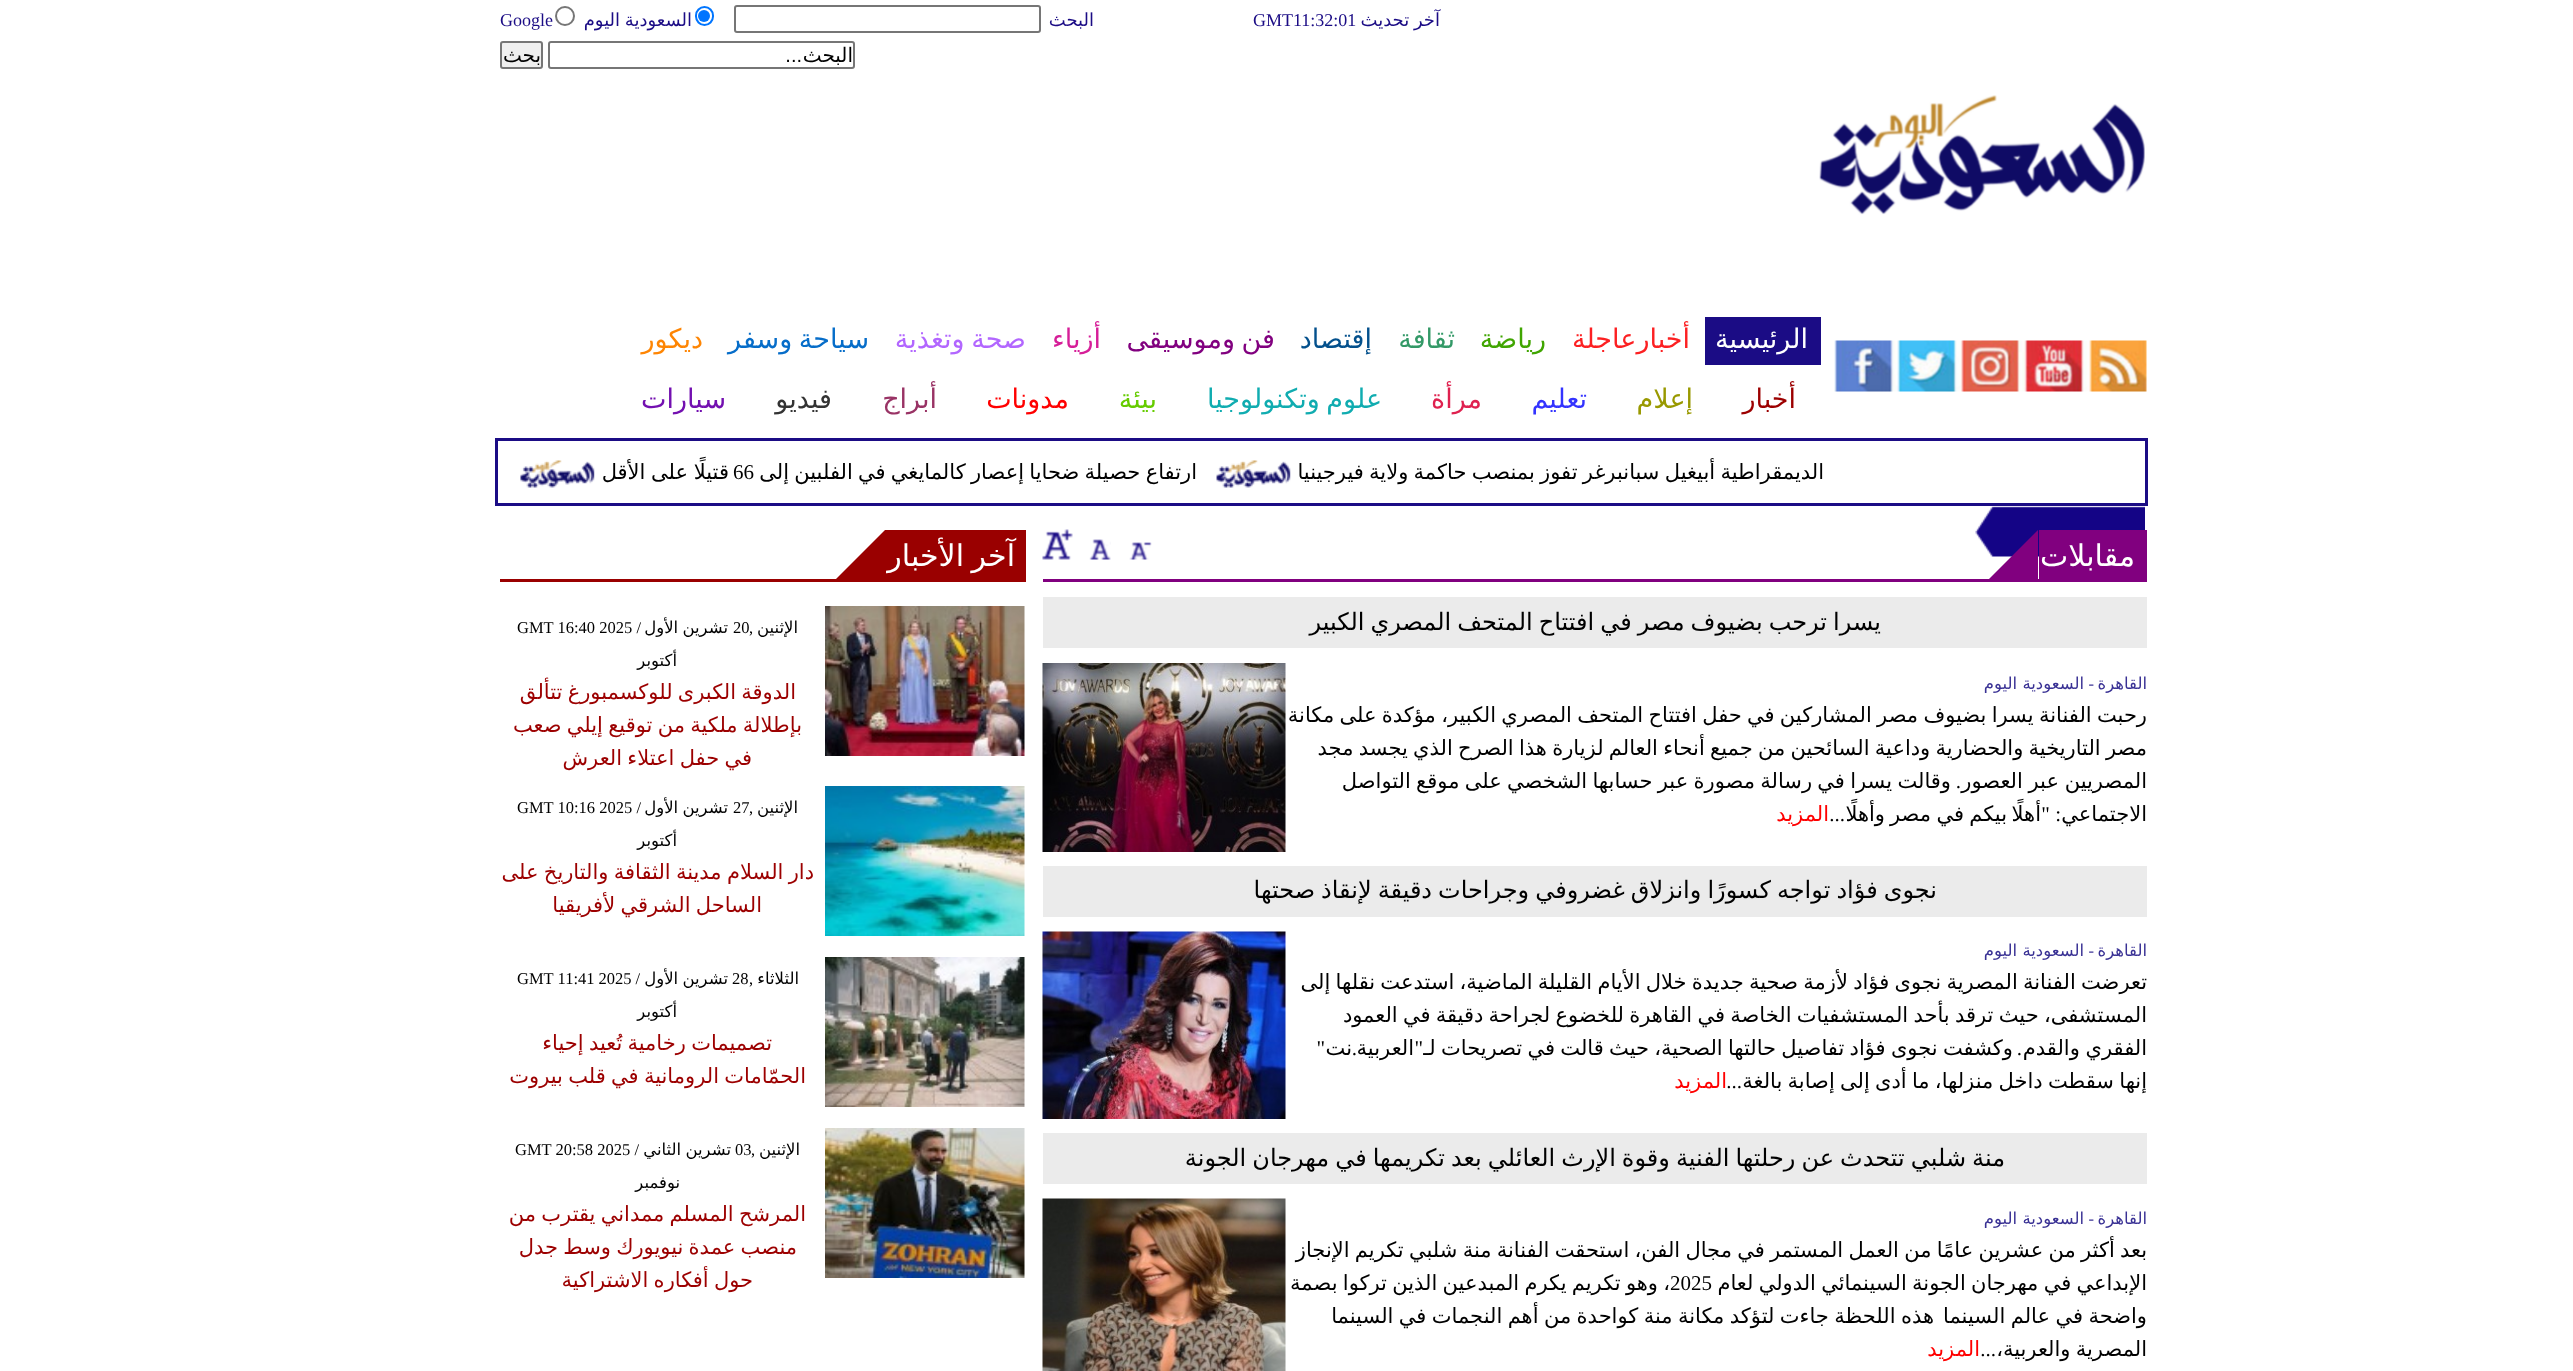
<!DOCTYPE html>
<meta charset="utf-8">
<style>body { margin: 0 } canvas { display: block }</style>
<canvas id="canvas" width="2573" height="1371"></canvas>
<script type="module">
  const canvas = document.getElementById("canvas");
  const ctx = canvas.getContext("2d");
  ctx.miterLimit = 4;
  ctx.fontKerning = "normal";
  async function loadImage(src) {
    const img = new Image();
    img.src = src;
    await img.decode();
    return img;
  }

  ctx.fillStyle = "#ffffff";
  ctx.fillRect(0, 0, 2573, 1371);
  ctx.wordSpacing = "-1px";
  ctx.direction = "rtl";
  ctx.font = "18px DejaVu Sans";
  ctx.fillStyle = "#1b0c85";
  ctx.fillText("آخر تحديث", 1440, 26);
  ctx.wordSpacing = "0px";
  ctx.direction = "ltr";
  ctx.font = "18px Liberation Serif";
  ctx.fillText("GMT11:32:01", 1253, 26);
  ctx.direction = "rtl";
  ctx.font = "18px DejaVu Sans";
  ctx.fillText("البحث", 1094, 26);
  ctx.beginPath();
  ctx.roundRect(735, 6, 305, 26, 2);
  ctx.strokeStyle = "#767676";
  ctx.lineWidth = 2;
  ctx.stroke();
  ctx.beginPath();
  ctx.roundRect(696, 7, 17, 18, 8.5);
  ctx.strokeStyle = "#0075ff";
  ctx.stroke();
  ctx.fillStyle = "#0075ff";
  ctx.beginPath();
  ctx.arc(704, 16, 6, 0, Math.PI * 2);
  ctx.fill();
  ctx.wordSpacing = "-1px";
  ctx.fillStyle = "#1b0c85";
  ctx.fillText("السعودية اليوم", 692, 26);
  ctx.beginPath();
  ctx.arc(565, 16, 9, 0, Math.PI * 2);
  ctx.strokeStyle = "#767676";
  ctx.stroke();
  ctx.wordSpacing = "0px";
  ctx.direction = "ltr";
  ctx.font = "18px Liberation Serif";
  ctx.fillText("Google", 500, 26);
  ctx.beginPath();
  ctx.roundRect(549, 42, 305, 26, 2);
  ctx.stroke();
  ctx.direction = "rtl";
  ctx.font = "20px DejaVu Sans";
  ctx.fillStyle = "#000000";
  ctx.fillText("البحث", 853, 62);
  ctx.font = "20px Liberation Sans";
  ctx.fillText("...", 802, 62);
  ctx.fillStyle = "#efefef";
  ctx.beginPath();
  ctx.roundRect(501, 42, 41, 26, 2);
  ctx.fill();
  ctx.stroke();
  ctx.font = "20px DejaVu Sans";
  ctx.fillStyle = "#000000";
  ctx.fillText("بحث", 541, 62);
  ctx.drawImage(await loadImage("img1.png"), 1819, 95, 326, 120);
  ctx.drawImage(await loadImage("img2.png"), 1834, 340, 313, 52);
  ctx.fillStyle = "#1b0c85";
  ctx.fillRect(1705, 317, 116, 48);
  ctx.font = "27px DejaVu Sans";
  ctx.fillStyle = "#ffffff";
  ctx.fillText("الرئيسية", 1808, 348);
  ctx.fillStyle = "#fc2022";
  ctx.fillText("أخبارعاجلة", 1690, 348);
  ctx.fillStyle = "#40a501";
  ctx.fillText("رياضة", 1546, 348);
  ctx.fillStyle = "#339967";
  ctx.fillText("ثقافة", 1455, 348);
  ctx.fillStyle = "#03508c";
  ctx.fillText("إقتصاد", 1372, 348);
  ctx.wordSpacing = "-2px";
  ctx.fillStyle = "#81007f";
  ctx.fillText("فن وموسيقى", 1275, 348);
  ctx.wordSpacing = "0px";
  ctx.fillStyle = "#d61e98";
  ctx.fillText("أزياء", 1101, 348);
  ctx.wordSpacing = "-2px";
  ctx.fillStyle = "#b266ff";
  ctx.fillText("صحة وتغذية", 1026, 348);
  ctx.fillStyle = "#066dc9";
  ctx.fillText("سياحة وسفر", 869, 348);
  ctx.wordSpacing = "0px";
  ctx.fillStyle = "#fe8503";
  ctx.fillText("ديكور", 703, 348);
  ctx.fillStyle = "#9c0000";
  ctx.fillText("أخبار", 1796, 408);
  ctx.fillStyle = "#999900";
  ctx.fillText("إعلام", 1693, 408);
  ctx.fillStyle = "#3333ff";
  ctx.fillText("تعليم", 1587, 408);
  ctx.fillStyle = "#df214f";
  ctx.fillText("مرأة", 1482, 408);
  ctx.wordSpacing = "-2px";
  ctx.fillStyle = "#10acb0";
  ctx.fillText("علوم وتكنولوجيا", 1382, 408);
  ctx.wordSpacing = "0px";
  ctx.fillStyle = "#66cc00";
  ctx.fillText("بيئة", 1157, 408);
  ctx.fillStyle = "#ff0000";
  ctx.fillText("مدونات", 1069, 408);
  ctx.fillStyle = "#993365";
  ctx.fillText("أبراج", 937, 408);
  ctx.fillStyle = "#333333";
  ctx.fillText("فيديو", 832, 408);
  ctx.fillStyle = "#7310b0";
  ctx.fillText("سيارات", 726, 408);
  ctx.strokeStyle = "#1b0c85";
  ctx.lineWidth = 3;
  ctx.strokeRect(496.5, 439.5, 1650, 65);
  ctx.drawImage(await loadImage("img3.png"), 1216, 460, 75, 28);
  ctx.wordSpacing = "-1.4px";
  ctx.font = "21px DejaVu Sans";
  ctx.fillStyle = "#000000";
  ctx.fillText("الديمقراطية أبيغيل سبانبرغر تفوز بمنصب حاكمة ولاية فيرجينيا", 1824, 479);
  ctx.drawImage(await loadImage("img4.png"), 520, 460, 75, 28);
  ctx.fillText("ارتفاع حصيلة ضحايا إعصار كالمايغي في الفلبين إلى", 1197, 479);
  ctx.wordSpacing = "0px";
  ctx.direction = "ltr";
  ctx.font = "21px Liberation Serif";
  ctx.fillText("66", 733, 479);
  ctx.wordSpacing = "-1px";
  ctx.direction = "rtl";
  ctx.font = "21px DejaVu Sans";
  ctx.fillText("قتيلًا على الأقل", 729, 479);
  ctx.drawImage(await loadImage("img5.png"), 1975, 506, 170, 51);
  ctx.fillStyle = "#81007f";
  ctx.fillRect(1043, 579, 1104, 3);
  ctx.fillRect(2039, 530, 108, 49);
  ctx.wordSpacing = "0px";
  ctx.font = "30px DejaVu Sans";
  ctx.fillStyle = "#ffffff";
  ctx.fillText("مقابلات", 2135, 566);
  ctx.fillStyle = "#81007f";
  ctx.beginPath();
  ctx.moveTo(2038, 530);
  ctx.lineTo(2038, 579);
  ctx.lineTo(1989, 579);
  ctx.closePath();
  ctx.fill();
  ctx.drawImage(await loadImage("img6.png"), 1129, 542, 23, 18);
  ctx.drawImage(await loadImage("img7.png"), 1089, 539, 22, 21);
  ctx.drawImage(await loadImage("img8.png"), 1042, 529, 31, 31);
  ctx.fillStyle = "#ebebeb";
  ctx.fillRect(1043, 597, 1104, 51);
  ctx.wordSpacing = "-1.6px";
  ctx.font = "24px DejaVu Sans";
  ctx.fillStyle = "#000000";
  ctx.fillText("يسرا ترحب بضيوف مصر في افتتاح المتحف المصري الكبير", 1881, 630);
  ctx.wordSpacing = "0px";
  ctx.font = "16.5px DejaVu Sans";
  ctx.fillStyle = "#393194";
  ctx.fillText("القاهرة", 2147, 689);
  ctx.font = "16.5px Liberation Serif";
  ctx.fillText("-", 2094, 689);
  ctx.font = "16.5px DejaVu Sans";
  ctx.fillText("السعودية اليوم", 2084, 689);
  ctx.drawImage(await loadImage("img9.png"), 1042, 663, 244, 189);
  ctx.wordSpacing = "-1.4px";
  ctx.font = "21px DejaVu Sans";
  ctx.fillStyle = "#000000";
  ctx.fillText("رحبت الفنانة يسرا بضيوف مصر المشاركين في حفل افتتاح المتحف المصري الكبير، مؤكدة على مكانة", 2147, 722);
  ctx.fillText("مصر التاريخية والحضارية وداعية السائحين من جميع أنحاء العالم لزيارة هذا الصرح الذي يجسد مجد", 2147, 755);
  ctx.wordSpacing = "-1px";
  ctx.fillText("المصريين عبر العصور", 2147, 788);
  ctx.wordSpacing = "0px";
  ctx.font = "21px Liberation Serif";
  ctx.fillText(".", 1961, 788);
  ctx.wordSpacing = "-1.4px";
  ctx.font = "21px DejaVu Sans";
  ctx.fillText("وقالت يسرا في رسالة مصورة عبر حسابها الشخصي على موقع التواصل", 1951, 788);
  ctx.wordSpacing = "0px";
  ctx.fillText("الاجتماعي", 2147, 821);
  ctx.font = "21px Liberation Serif";
  ctx.fillText(": \"", 2061, 821);
  ctx.font = "21px DejaVu Sans";
  ctx.fillText("أهلًا", 2041, 821);
  ctx.fillText("بيكم", 2007, 821);
  ctx.fillText("في", 1964, 821);
  ctx.fillText("مصر", 1931, 821);
  ctx.fillText("وأهلًا", 1885, 821);
  ctx.font = "21px Liberation Serif";
  ctx.fillText("...", 1845, 821);
  ctx.font = "21px DejaVu Sans";
  ctx.fillStyle = "#ff0000";
  ctx.fillText("المزيد", 1829, 821);
  ctx.fillStyle = "#ebebeb";
  ctx.fillRect(1043, 866, 1104, 51);
  ctx.wordSpacing = "-1.6px";
  ctx.font = "24px DejaVu Sans";
  ctx.fillStyle = "#000000";
  ctx.fillText("نجوى فؤاد تواجه كسورًا وانزلاق غضروفي وجراحات دقيقة لإنقاذ صحتها", 1937, 898);
  ctx.wordSpacing = "0px";
  ctx.font = "16.5px DejaVu Sans";
  ctx.fillStyle = "#393194";
  ctx.fillText("القاهرة", 2147, 956);
  ctx.font = "16.5px Liberation Serif";
  ctx.fillText("-", 2094, 956);
  ctx.font = "16.5px DejaVu Sans";
  ctx.fillText("السعودية اليوم", 2084, 956);
  ctx.drawImage(await loadImage("img10.png"), 1042, 931, 244, 188);
  ctx.wordSpacing = "-1.4px";
  ctx.font = "21px DejaVu Sans";
  ctx.fillStyle = "#000000";
  ctx.fillText("تعرضت الفنانة المصرية نجوى فؤاد لأزمة صحية جديدة خلال الأيام القليلة الماضية، استدعت نقلها إلى", 2147, 989);
  ctx.fillText("المستشفى، حيث ترقد بأحد المستشفيات الخاصة في القاهرة للخضوع لجراحة دقيقة في العمود", 2147, 1022);
  ctx.wordSpacing = "-1px";
  ctx.fillText("الفقري والقدم", 2147, 1055);
  ctx.wordSpacing = "0px";
  ctx.font = "21px Liberation Serif";
  ctx.fillText(".", 2022, 1055);
  ctx.wordSpacing = "-1.4px";
  ctx.font = "21px DejaVu Sans";
  ctx.fillText("وكشفت نجوى فؤاد تفاصيل حالتها الصحية، حيث قالت في تصريحات لـ", 2013, 1055);
  ctx.wordSpacing = "0px";
  ctx.font = "21px Liberation Serif";
  ctx.fillText("\"", 1423, 1055);
  ctx.font = "21px DejaVu Sans";
  ctx.fillText("العربية", 1414, 1055);
  ctx.font = "21px Liberation Serif";
  ctx.fillText(".", 1357, 1055);
  ctx.font = "21px DejaVu Sans";
  ctx.fillText("نت", 1352, 1055);
  ctx.font = "21px Liberation Serif";
  ctx.fillText("\"", 1325, 1055);
  ctx.wordSpacing = "-1.4px";
  ctx.font = "21px DejaVu Sans";
  ctx.fillText("إنها سقطت داخل منزلها، ما أدى إلى إصابة بالغة", 2147, 1088);
  ctx.wordSpacing = "0px";
  ctx.font = "21px Liberation Serif";
  ctx.fillText("...", 1742, 1088);
  ctx.font = "21px DejaVu Sans";
  ctx.fillStyle = "#ff0000";
  ctx.fillText("المزيد", 1727, 1088);
  ctx.fillStyle = "#ebebeb";
  ctx.fillRect(1043, 1133, 1104, 51);
  ctx.wordSpacing = "-1.6px";
  ctx.font = "24px DejaVu Sans";
  ctx.fillStyle = "#000000";
  ctx.fillText("منة شلبي تتحدث عن رحلتها الفنية وقوة الإرث العائلي بعد تكريمها في مهرجان الجونة", 2005, 1166);
  ctx.wordSpacing = "0px";
  ctx.font = "16.5px DejaVu Sans";
  ctx.fillStyle = "#393194";
  ctx.fillText("القاهرة", 2147, 1224);
  ctx.font = "16.5px Liberation Serif";
  ctx.fillText("-", 2094, 1224);
  ctx.font = "16.5px DejaVu Sans";
  ctx.fillText("السعودية اليوم", 2084, 1224);
  ctx.drawImage(await loadImage("img11.png"), 1042, 1198, 244, 173);
  ctx.wordSpacing = "-1.4px";
  ctx.font = "21px DejaVu Sans";
  ctx.fillStyle = "#000000";
  ctx.fillText("بعد أكثر من عشرين عامًا من العمل المستمر في مجال الفن، استحقت الفنانة منة شلبي تكريم الإنجاز", 2147, 1257);
  ctx.fillText("الإبداعي في مهرجان الجونة السينمائي الدولي لعام", 2147, 1290);
  ctx.fillText("، وهو تكريم يكرم المبدعين الذين تركوا بصمة", 1670, 1290);
  ctx.wordSpacing = "0px";
  ctx.direction = "ltr";
  ctx.font = "21px Liberation Serif";
  ctx.fillText("2025", 1670, 1290);
  ctx.wordSpacing = "-1.25px";
  ctx.direction = "rtl";
  ctx.font = "21px DejaVu Sans";
  ctx.fillText("واضحة في عالم السينما", 2147, 1323);
  ctx.fillText("هذه اللحظة جاءت لتؤكد مكانة منة كواحدة من أهم النجمات في السينما", 1934, 1323);
  ctx.wordSpacing = "-1.4px";
  ctx.fillText("المصرية والعربية،", 2147, 1356);
  ctx.wordSpacing = "0px";
  ctx.font = "21px Liberation Serif";
  ctx.fillText("...", 1996, 1356);
  ctx.font = "21px DejaVu Sans";
  ctx.fillStyle = "#ff0000";
  ctx.fillText("المزيد", 1980, 1356);
  ctx.fillStyle = "#9a0000";
  ctx.fillRect(500, 579, 526, 3);
  ctx.fillRect(885, 530, 141, 49);
  ctx.wordSpacing = "-2px";
  ctx.font = "30px DejaVu Sans";
  ctx.fillStyle = "#ffffff";
  ctx.fillText("آخر الأخبار", 1015, 566);
  ctx.fillStyle = "#9a0000";
  ctx.beginPath();
  ctx.moveTo(885, 530);
  ctx.lineTo(885, 579);
  ctx.lineTo(836, 579);
  ctx.closePath();
  ctx.fill();
  ctx.drawImage(await loadImage("img12.png"), 825, 606, 200, 150);
  ctx.wordSpacing = "0px";
  ctx.font = "16.5px DejaVu Sans";
  ctx.fillStyle = "#000000";
  ctx.fillText("الإثنين", 798, 633);
  ctx.font = "16.5px Liberation Serif";
  ctx.fillText(",", 753, 633);
  ctx.direction = "ltr";
  ctx.fillText("20", 733, 633);
  ctx.wordSpacing = "-1px";
  ctx.direction = "rtl";
  ctx.font = "16.5px DejaVu Sans";
  ctx.fillText("تشرين الأول", 728, 633);
  ctx.wordSpacing = "0px";
  ctx.font = "16.5px Liberation Serif";
  ctx.fillText("/", 641, 633);
  ctx.direction = "ltr";
  ctx.fillText("GMT 16:40 2025", 517, 633);
  ctx.direction = "rtl";
  ctx.font = "16.5px DejaVu Sans";
  ctx.fillText("أكتوبر", 677, 666);
  ctx.wordSpacing = "-1.4px";
  ctx.font = "21px DejaVu Sans";
  ctx.fillStyle = "#9c0000";
  ctx.fillText("الدوقة الكبرى للوكسمبورغ تتألق", 796, 699);
  ctx.fillText("بإطلالة ملكية من توقيع إيلي صعب", 802, 732);
  ctx.fillText("في حفل اعتلاء العرش", 752, 765);
  ctx.drawImage(await loadImage("img13.png"), 825, 786, 200, 150);
  ctx.wordSpacing = "0px";
  ctx.font = "16.5px DejaVu Sans";
  ctx.fillStyle = "#000000";
  ctx.fillText("الإثنين", 798, 813);
  ctx.direction = "ltr";
  ctx.font = "16.5px Liberation Serif";
  ctx.fillText("27", 733, 813);
  ctx.wordSpacing = "-1px";
  ctx.direction = "rtl";
  ctx.font = "16.5px DejaVu Sans";
  ctx.fillText("تشرين الأول", 728, 813);
  ctx.wordSpacing = "0px";
  ctx.font = "16.5px Liberation Serif";
  ctx.fillText("/", 641, 813);
  ctx.direction = "ltr";
  ctx.fillText("GMT 10:16 2025", 517, 813);
  ctx.direction = "rtl";
  ctx.fillText(",", 753, 813);
  ctx.font = "16.5px DejaVu Sans";
  ctx.fillText("أكتوبر", 677, 846);
  ctx.wordSpacing = "-1.4px";
  ctx.font = "21px DejaVu Sans";
  ctx.fillStyle = "#9c0000";
  ctx.fillText("دار السلام مدينة الثقافة والتاريخ على", 814, 879);
  ctx.fillText("الساحل الشرقي لأفريقيا", 762, 912);
  ctx.drawImage(await loadImage("img14.png"), 825, 957, 200, 150);
  ctx.wordSpacing = "0px";
  ctx.font = "16.5px DejaVu Sans";
  ctx.fillStyle = "#000000";
  ctx.fillText("الثلاثاء", 799, 984);
  ctx.font = "16.5px Liberation Serif";
  ctx.fillText(",", 753, 984);
  ctx.direction = "ltr";
  ctx.fillText("28", 732, 984);
  ctx.wordSpacing = "-1px";
  ctx.direction = "rtl";
  ctx.font = "16.5px DejaVu Sans";
  ctx.fillText("تشرين الأول", 728, 984);
  ctx.wordSpacing = "0px";
  ctx.font = "16.5px Liberation Serif";
  ctx.fillText("/", 640, 984);
  ctx.direction = "ltr";
  ctx.fillText("GMT 11:41 2025", 517, 984);
  ctx.direction = "rtl";
  ctx.font = "16.5px DejaVu Sans";
  ctx.fillText("أكتوبر", 677, 1017);
  ctx.wordSpacing = "-1.4px";
  ctx.font = "21px DejaVu Sans";
  ctx.fillStyle = "#9c0000";
  ctx.fillText("تصميمات رخامية تُعيد إحياء", 772, 1050);
  ctx.fillText("الحمّامات الرومانية في قلب بيروت", 806, 1083);
  ctx.drawImage(await loadImage("img15.png"), 825, 1128, 200, 150);
  ctx.wordSpacing = "0px";
  ctx.font = "16.5px DejaVu Sans";
  ctx.fillStyle = "#000000";
  ctx.fillText("الإثنين", 800, 1155);
  ctx.font = "16.5px Liberation Serif";
  ctx.fillText(",", 755, 1155);
  ctx.direction = "ltr";
  ctx.fillText("03", 735, 1155);
  ctx.wordSpacing = "-1px";
  ctx.direction = "rtl";
  ctx.font = "16.5px DejaVu Sans";
  ctx.fillText("تشرين الثاني", 731, 1155);
  ctx.wordSpacing = "0px";
  ctx.font = "16.5px Liberation Serif";
  ctx.fillText("/", 639, 1155);
  ctx.direction = "ltr";
  ctx.fillText("GMT 20:58 2025", 515, 1155);
  ctx.direction = "rtl";
  ctx.font = "16.5px DejaVu Sans";
  ctx.fillText("نوفمبر", 680, 1188);
  ctx.wordSpacing = "-1.4px";
  ctx.font = "21px DejaVu Sans";
  ctx.fillStyle = "#9c0000";
  ctx.fillText("المرشح المسلم ممداني يقترب من", 806, 1221);
  ctx.fillText("منصب عمدة نيويورك وسط جدل", 797, 1254);
  ctx.fillText("حول أفكاره الاشتراكية", 753, 1287);
</script>
